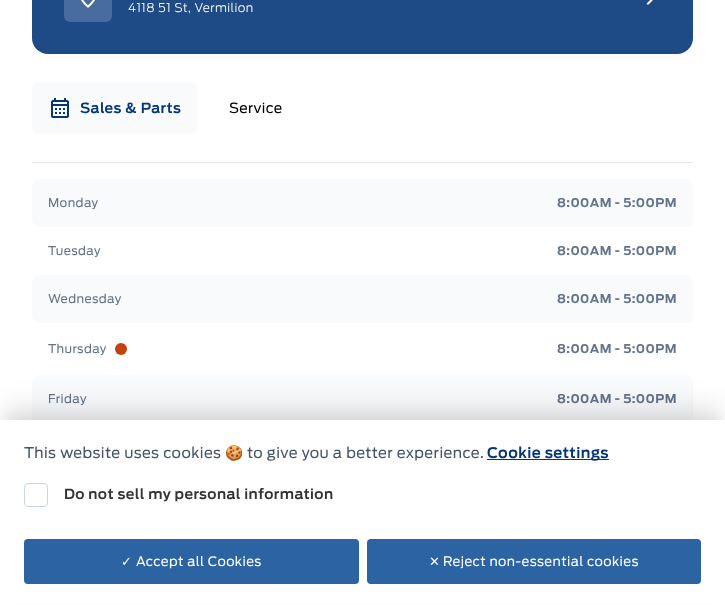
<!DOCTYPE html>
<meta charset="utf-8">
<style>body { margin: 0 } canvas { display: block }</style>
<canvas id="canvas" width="725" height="608"></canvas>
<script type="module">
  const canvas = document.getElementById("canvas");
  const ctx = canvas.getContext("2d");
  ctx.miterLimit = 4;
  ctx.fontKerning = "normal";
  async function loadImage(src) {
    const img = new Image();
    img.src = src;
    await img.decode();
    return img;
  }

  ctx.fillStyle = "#ffffff";
  ctx.fillRect(0, 0, 725, 608);
  ctx.fillStyle = "#1e4a85";
  ctx.beginPath();
  ctx.roundRect(32, -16, 661, 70, 16);
  ctx.fill();
  ctx.fillStyle = "#486c9d";
  ctx.beginPath();
  ctx.roundRect(64, -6, 48, 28, 6);
  ctx.fill();
  ctx.drawImage(await loadImage("img1.png"), 81, 0, 14, 8);
  ctx.letterSpacing = "0.4px";
  ctx.font = "300 12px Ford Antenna";
  ctx.fillStyle = "#ffffff";
  ctx.fillText("4118 51 St, Vermilion", 128, 12);
  ctx.drawImage(await loadImage("img2.png"), 646, 0, 7, 5);
  ctx.fillStyle = "#e5e7eb";
  ctx.fillRect(32, 162, 661, 1);
  ctx.fillStyle = "#f8fafc";
  ctx.beginPath();
  ctx.roundRect(32, 82, 165, 52, 6);
  ctx.fill();
  ctx.drawImage(await loadImage("img3.png"), 51, 98, 18, 20);
  ctx.font = "600 14px Ford Antenna";
  ctx.fillStyle = "#053677";
  ctx.fillText("Sales & Parts", 80, 113);
  ctx.font = "14px Ford Antenna";
  ctx.fillStyle = "#000000";
  ctx.fillText("Service", 229, 113);
  ctx.fillStyle = "#f8fafc";
  ctx.beginPath();
  ctx.roundRect(32, 179, 661, 48, 8);
  ctx.fill();
  ctx.font = "12px Ford Antenna";
  ctx.fillStyle = "#64748b";
  ctx.fillText("Monday", 48, 207);
  ctx.font = "bold 12px Ford Antenna";
  ctx.fillText("8:00AM - 5:00PM", 557, 207);
  ctx.font = "12px Ford Antenna";
  ctx.fillText("Tuesday", 48, 255);
  ctx.font = "bold 12px Ford Antenna";
  ctx.fillText("8:00AM - 5:00PM", 557, 255);
  ctx.fillStyle = "#f8fafc";
  ctx.beginPath();
  ctx.roundRect(32, 275, 661, 48, 8);
  ctx.fill();
  ctx.font = "12px Ford Antenna";
  ctx.fillStyle = "#64748b";
  ctx.fillText("Wednesday", 48, 303);
  ctx.font = "bold 12px Ford Antenna";
  ctx.fillText("8:00AM - 5:00PM", 557, 303);
  ctx.font = "12px Ford Antenna";
  ctx.fillText("Thursday", 48, 353);
  ctx.fillStyle = "#c2410c";
  ctx.beginPath();
  ctx.arc(121, 349, 6, 0, Math.PI * 2);
  ctx.fill();
  ctx.font = "bold 12px Ford Antenna";
  ctx.fillStyle = "#64748b";
  ctx.fillText("8:00AM - 5:00PM", 557, 353);
  ctx.fillStyle = "#f8fafc";
  ctx.beginPath();
  ctx.roundRect(32, 375, 661, 48, 8);
  ctx.fill();
  ctx.font = "12px Ford Antenna";
  ctx.fillStyle = "#64748b";
  ctx.fillText("Friday", 48, 403);
  ctx.font = "bold 12px Ford Antenna";
  ctx.fillText("8:00AM - 5:00PM", 557, 403);
  ctx.fillStyle = "rgba(0, 0, 0, 0.04)";
  ctx.filter = "blur(5px)";
  ctx.beginPath();
  ctx.rect(5, 415, 715, 178);
  ctx.fill();
  ctx.filter = "none";
  ctx.fillStyle = "rgba(0, 0, 0, 0.1)";
  ctx.filter = "blur(12.5px)";
  ctx.beginPath();
  ctx.rect(5, 405, 715, 178);
  ctx.fill();
  ctx.filter = "none";
  ctx.fillStyle = "#ffffff";
  ctx.fillRect(0, 420, 725, 181);
  ctx.font = "14.7px Ford Antenna";
  ctx.fillStyle = "#475569";
  ctx.fillText("This website uses cookies", 24, 458);
  ctx.font = "14.7px Noto Color Emoji";
  ctx.fillText("🍪", 225, 458);
  ctx.font = "14.7px Ford Antenna";
  ctx.fillText("to give you a better experience.", 247, 458);
  ctx.fillStyle = "#053677";
  ctx.fillRect(487, 459, 122, 1);
  ctx.font = "600 14.7px Ford Antenna";
  ctx.fillText("Cookie settings", 487, 458);
  ctx.beginPath();
  ctx.roundRect(24.5, 483.5, 23, 23, 3.5);
  ctx.strokeStyle = "#cbd5e1";
  ctx.stroke();
  ctx.font = "600 14px Ford Antenna";
  ctx.fillStyle = "#333333";
  ctx.fillText("Do not sell my personal information", 64, 499);
  ctx.fillStyle = "#2c63a2";
  ctx.beginPath();
  ctx.roundRect(24, 539, 335, 45, 4);
  ctx.fill();
  ctx.font = "13px DejaVu Sans";
  ctx.fillStyle = "#ffffff";
  ctx.fillText("✓", 121, 566);
  ctx.font = "13px Ford Antenna";
  ctx.fillText("Accept all Cookies", 136, 566);
  ctx.fillStyle = "#2c63a2";
  ctx.beginPath();
  ctx.roundRect(367, 539, 334, 45, 4);
  ctx.fill();
  ctx.font = "13px DejaVu Sans";
  ctx.fillStyle = "#ffffff";
  ctx.fillText("✕", 429, 566);
  ctx.font = "13px Ford Antenna";
  ctx.fillText("Reject non-essential cookies", 443, 566);
</script>
